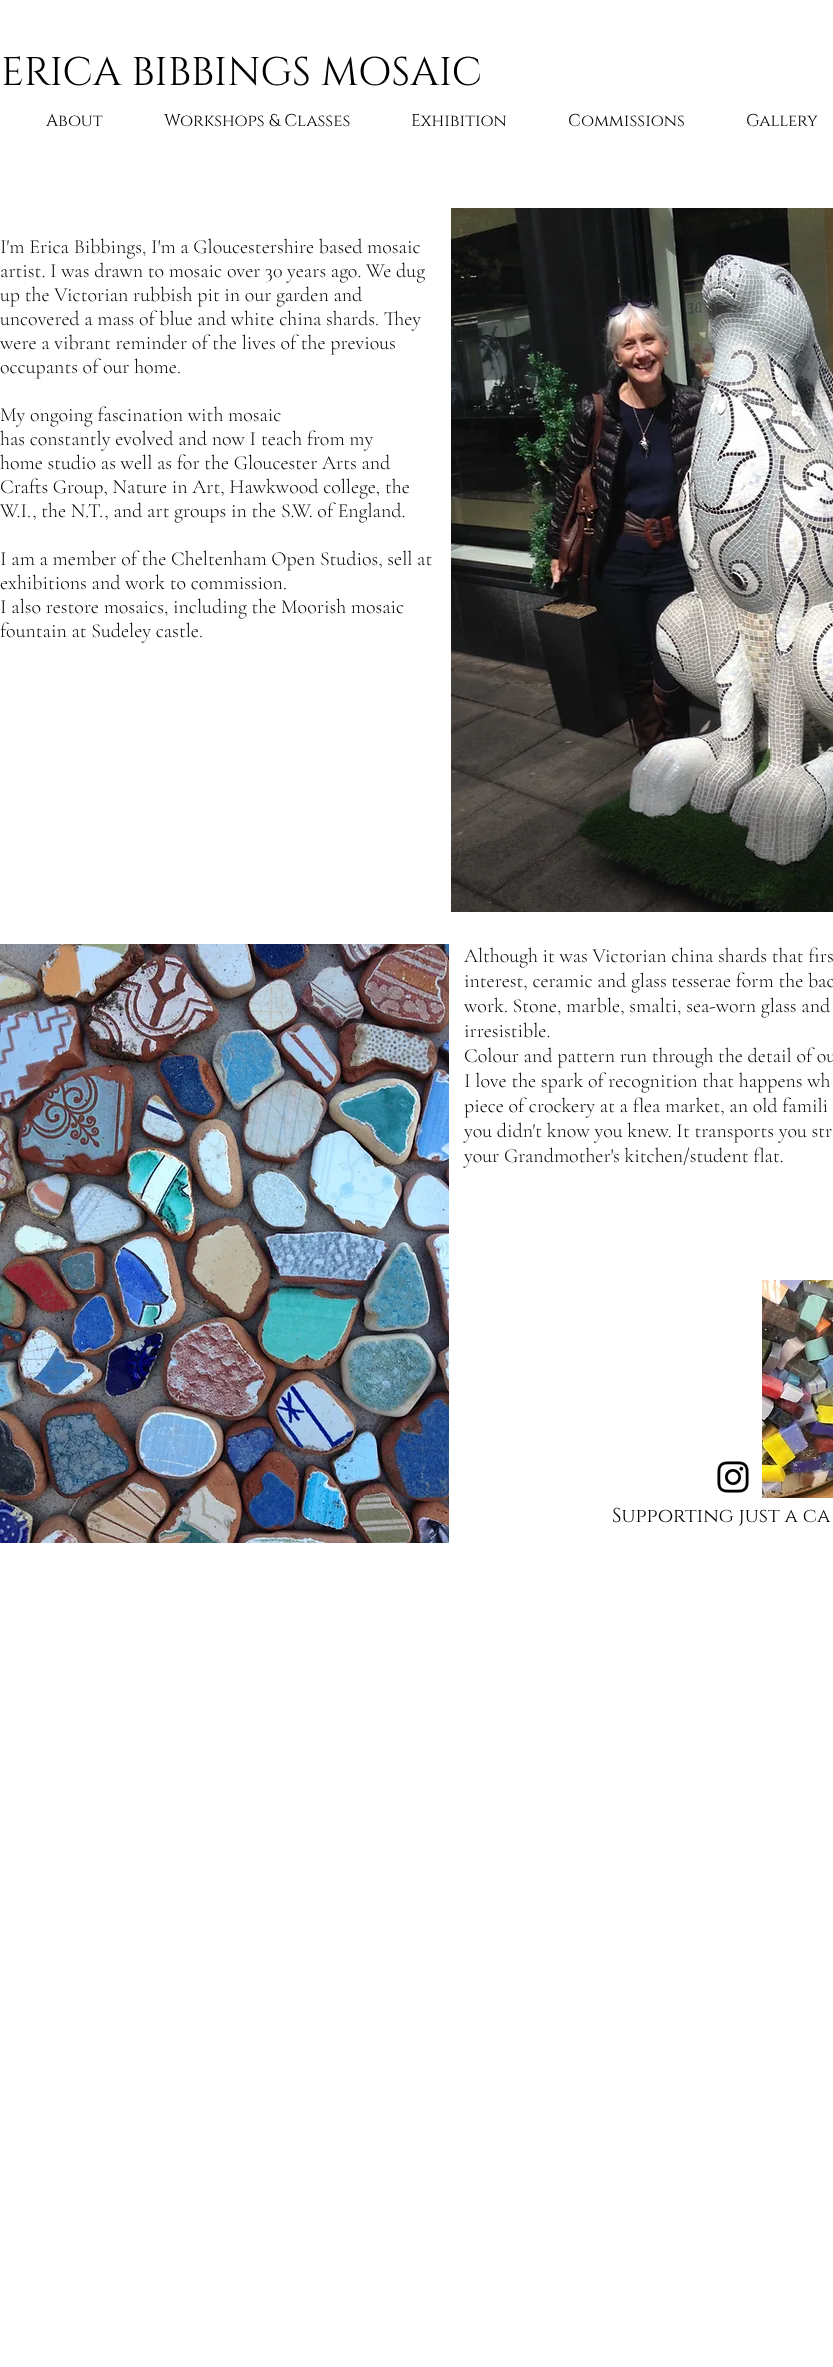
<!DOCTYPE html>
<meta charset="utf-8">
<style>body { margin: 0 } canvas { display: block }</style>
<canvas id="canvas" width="833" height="2367"></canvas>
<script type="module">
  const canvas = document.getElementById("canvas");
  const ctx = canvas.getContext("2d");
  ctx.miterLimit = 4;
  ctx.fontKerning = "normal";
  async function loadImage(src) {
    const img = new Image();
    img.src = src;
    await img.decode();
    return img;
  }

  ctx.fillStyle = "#ffffff";
  ctx.fillRect(0, 0, 833, 2367);
  ctx.font = "40px Cinzel";
  ctx.fillStyle = "#000000";
  ctx.fillText("ERICA BIBBINGS MOSAIC", 1, 85);
  ctx.font = "17px Cinzel";
  ctx.fillText("About", 46, 126);
  ctx.fillText("Workshops & Classes", 164, 126);
  ctx.fillText("Exhibition", 411, 126);
  ctx.fillText("Commissions", 568, 126);
  ctx.fillText("Gallery", 746, 126);
  ctx.font = "300 20px Cormorant Garamond";
  ctx.fillText("I'm Erica Bibbings, I'm a Gloucestershire based mosaic", 0, 253);
  ctx.fillText("artist. I was drawn to mosaic over 30 years ago. We dug", 0, 277);
  ctx.fillText("up the V", 0, 301);
  ctx.fillText("ictorian rubbish pit in our garden and", 67, 301);
  ctx.fillText("uncovered a mass of blue and white china shards. They", 0, 325);
  ctx.fillText("were a vibrant reminder of the lives of the previous", 0, 349);
  ctx.fillText("occupants of our home.", 0, 373);
  ctx.fillText("My ongoing fascination with mosaic", 0, 421);
  ctx.fillText("has constantly evolved and now I teach from my", 0, 445);
  ctx.fillText("home studio as well as for the Gloucester Arts and", 0, 469);
  ctx.fillText("Crafts Group, Nature in Art, Hawkwood college, the", 0, 493);
  ctx.fillText("W.I., the N.T., and art groups in the S.W. of England.", 0, 517);
  ctx.fillText("I am a member of the Cheltenham Open Studios, sell at", 0, 565);
  ctx.fillText("exhibitions and work to commission.", 0, 589);
  ctx.fillText("I also restore mosaics, including the Moorish mosaic", 0, 613);
  ctx.fillText("fountain at Sudeley castle.", 0, 637);
  ctx.drawImage(await loadImage("img1.png"), 451, 208, 382, 704);
  ctx.drawImage(await loadImage("img2.png"), 0, 944, 449, 599);
  ctx.fillText("Although it was Victorian china shards that firs", 464, 962);
  ctx.fillText("interest, ceramic and glass tesserae form the bac", 464, 987);
  ctx.fillText("work. Stone, marble, smalti, sea-worn glass and", 464, 1012);
  ctx.fillText("irresistible.", 464, 1037);
  ctx.fillText("Colour and pattern run through the detail of ou", 464, 1062);
  ctx.fillText("I love the spark of recognition that happens wh", 464, 1087);
  ctx.fillText("piece of crockery at a flea market, an old famili", 464, 1112);
  ctx.fillText("you didn't know you knew. It transports you str", 464, 1137);
  ctx.fillText("your Grandmother's kitchen/student flat.", 464, 1162);
  ctx.drawImage(await loadImage("img3.png"), 717, 1461, 32, 32);
  ctx.drawImage(await loadImage("img4.png"), 762, 1280, 71, 218);
  ctx.font = "20px Cinzel";
  ctx.fillText("Supporting just a ca", 612, 1522);
</script>
